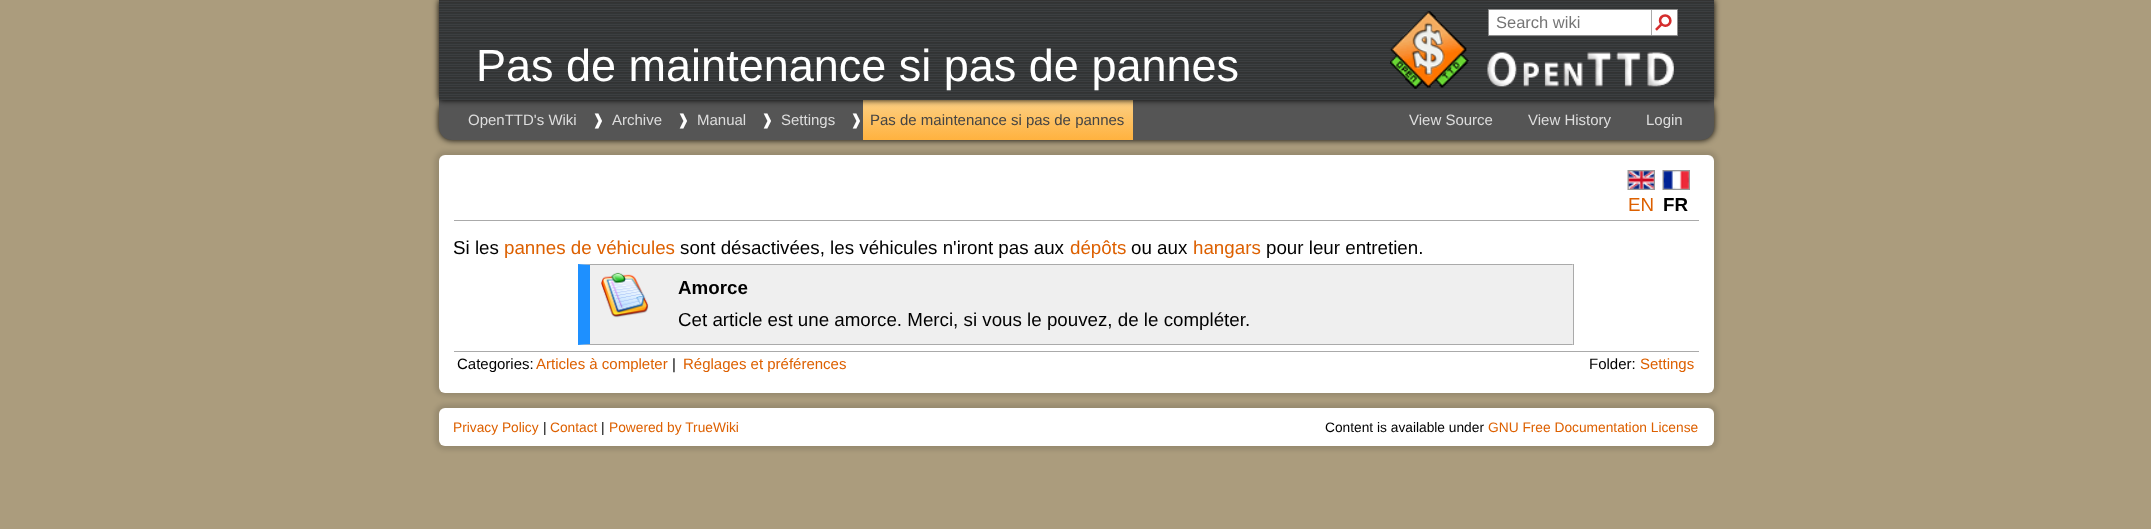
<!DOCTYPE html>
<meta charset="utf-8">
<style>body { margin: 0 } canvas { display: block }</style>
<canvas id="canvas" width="2151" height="529"></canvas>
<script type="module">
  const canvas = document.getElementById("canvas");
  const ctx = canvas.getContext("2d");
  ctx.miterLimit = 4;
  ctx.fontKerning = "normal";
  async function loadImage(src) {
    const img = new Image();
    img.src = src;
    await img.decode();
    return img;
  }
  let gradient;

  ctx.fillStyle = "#ab9c7d";
  ctx.fillRect(0, 0, 2151, 529);
  ctx.fillStyle = "#000000";
  ctx.filter = "blur(3px)";
  ctx.beginPath();
  ctx.roundRect(439, 100, 1275, 40, 13);
  ctx.fill();
  ctx.filter = "none";
  ctx.fillStyle = "#555555";
  ctx.beginPath();
  ctx.roundRect(439, 100, 1275, 40, [0, 0, 13, 13]);
  ctx.fill();
  gradient = ctx.createLinearGradient(998, 100, 998, 140);
  gradient.addColorStop(0, "#fcd085");
  gradient.addColorStop(1, "#ffb23f");
  ctx.fillStyle = gradient;
  ctx.fillRect(863, 100, 270, 40);
  ctx.fillStyle = "#000000";
  ctx.filter = "blur(3px)";
  ctx.beginPath();
  ctx.rect(439, 0, 1275, 100);
  ctx.fill();
  ctx.filter = "none";
  ctx.fillStyle = "#333333";
  ctx.fillRect(439, 0, 1275, 98);
  ctx.drawImage(await loadImage("img1.png"), 439, 1, 1275, 99);
  ctx.fillStyle = "#ffffff";
  ctx.beginPath();
  ctx.rect(1488.5, 9.5, 189, 26);
  ctx.fill();
  ctx.strokeStyle = "#8d8d8d";
  ctx.stroke();
  ctx.font = "16.5px Liberation Sans";
  ctx.fillStyle = "#757575";
  ctx.fillText("Search wiki", 1496, 28);
  ctx.fillStyle = "#aaaaaa";
  ctx.fillRect(1651, 10, 1, 25);
  ctx.font = "bold 22px DejaVu Sans";
  ctx.fillStyle = "#d52d2d";
  ctx.save();
  ctx.translate(1652, 22);
  ctx.rotate(45 * Math.PI / 180);
  ctx.fillText("⚲", 0, 0);
  ctx.restore();
  ctx.font = "45px Liberation Sans";
  ctx.fillStyle = "#ffffff";
  ctx.fillText("Pas de maintenance si pas de pannes", 476, 81);
  ctx.drawImage(await loadImage("img2.png"), 1389, 10, 80, 79);
  ctx.drawImage(await loadImage("img3.png"), 1487, 52, 187, 35);
  ctx.font = "15px Liberation Sans";
  ctx.fillStyle = "#dddddd";
  ctx.fillText("OpenTTD's Wiki", 468, 125);
  ctx.font = "15px DejaVu Sans";
  ctx.fillStyle = "#ffffff";
  ctx.fillText("❱", 592, 125);
  ctx.font = "15px Liberation Sans";
  ctx.fillStyle = "#dddddd";
  ctx.fillText("Archive", 612, 125);
  ctx.font = "15px DejaVu Sans";
  ctx.fillStyle = "#ffffff";
  ctx.fillText("❱", 677, 125);
  ctx.font = "15px Liberation Sans";
  ctx.fillStyle = "#dddddd";
  ctx.fillText("Manual", 697, 125);
  ctx.font = "15px DejaVu Sans";
  ctx.fillStyle = "#ffffff";
  ctx.fillText("❱", 761, 125);
  ctx.font = "15px Liberation Sans";
  ctx.fillStyle = "#dddddd";
  ctx.fillText("Settings", 781, 125);
  ctx.font = "15px DejaVu Sans";
  ctx.fillStyle = "#ffffff";
  ctx.fillText("❱", 850, 125);
  ctx.font = "15px Liberation Sans";
  ctx.fillStyle = "#444444";
  ctx.fillText("Pas de maintenance si pas de pannes", 870, 125);
  ctx.fillStyle = "#dddddd";
  ctx.fillText("View Source", 1409, 125);
  ctx.fillText("View History", 1528, 125);
  ctx.fillText("Login", 1646, 125);
  ctx.fillStyle = "rgba(0, 0, 0, 0.11)";
  ctx.filter = "blur(2px)";
  ctx.beginPath();
  ctx.roundRect(435, 151, 1283, 245, 10);
  ctx.fill();
  ctx.filter = "none";
  ctx.fillStyle = "#ffffff";
  ctx.beginPath();
  ctx.roundRect(439, 155, 1275, 238, 6);
  ctx.fill();
  ctx.fillStyle = "#aaaaaa";
  ctx.fillRect(454, 220, 1245, 1);
  ctx.drawImage(await loadImage("img4.png"), 1627, 170, 28, 20);
  ctx.font = "18.75px Liberation Sans";
  ctx.fillStyle = "#dd6000";
  ctx.fillText("EN", 1628, 211);
  ctx.drawImage(await loadImage("img5.png"), 1662, 170, 28, 20);
  ctx.font = "bold 18.75px Liberation Sans";
  ctx.fillStyle = "#000000";
  ctx.fillText("FR", 1663, 211);
  ctx.font = "18.75px Liberation Sans";
  ctx.fillText("Si les", 453, 254);
  ctx.fillStyle = "#dd6000";
  ctx.fillText("pannes de véhicules", 504, 254);
  ctx.fillStyle = "#000000";
  ctx.fillText("sont désactivées, les véhicules n'iront pas aux", 680, 254);
  ctx.fillStyle = "#dd6000";
  ctx.fillText("dépôts", 1070, 254);
  ctx.fillStyle = "#000000";
  ctx.fillText("ou aux", 1131, 254);
  ctx.fillStyle = "#dd6000";
  ctx.fillText("hangars", 1193, 254);
  ctx.fillStyle = "#000000";
  ctx.fillText("pour leur entretien.", 1266, 254);
  ctx.fillStyle = "#efefef";
  ctx.fillRect(590, 265, 983, 79);
  ctx.fillStyle = "#aaaaaa";
  ctx.beginPath();
  ctx.moveTo(578, 264);
  ctx.lineTo(1574, 264);
  ctx.lineTo(1572, 265);
  ctx.lineTo(590, 265);
  ctx.closePath();
  ctx.fill();
  ctx.fillRect(1573, 264, 1, 81);
  ctx.beginPath();
  ctx.moveTo(1574, 345);
  ctx.lineTo(578, 345);
  ctx.lineTo(590, 344);
  ctx.lineTo(1572, 344);
  ctx.closePath();
  ctx.fill();
  ctx.fillStyle = "#1e90ff";
  ctx.beginPath();
  ctx.moveTo(578, 345);
  ctx.lineTo(578, 264);
  ctx.lineTo(590, 265);
  ctx.lineTo(590, 344);
  ctx.closePath();
  ctx.fill();
  ctx.drawImage(await loadImage("img6.png"), 601, 272, 48, 46);
  ctx.font = "bold 18.75px Liberation Sans";
  ctx.fillStyle = "#000000";
  ctx.fillText("Amorce", 678, 294);
  ctx.font = "18.75px Liberation Sans";
  ctx.fillText("Cet article est une amorce. Merci, si vous le pouvez, de le compléter.", 678, 326);
  ctx.fillStyle = "#aaaaaa";
  ctx.fillRect(454, 351, 1245, 1);
  ctx.font = "15px Liberation Sans";
  ctx.fillStyle = "#000000";
  ctx.fillText("Categories:", 457, 369);
  ctx.fillStyle = "#dd6000";
  ctx.fillText("Articles à completer", 536, 369);
  ctx.fillStyle = "#000000";
  ctx.fillText("|", 672, 369);
  ctx.fillStyle = "#dd6000";
  ctx.fillText("Réglages et préférences", 683, 369);
  ctx.fillStyle = "#000000";
  ctx.fillText("Folder:", 1589, 369);
  ctx.fillStyle = "#dd6000";
  ctx.fillText("Settings", 1640, 369);
  ctx.fillStyle = "rgba(0, 0, 0, 0.11)";
  ctx.filter = "blur(2px)";
  ctx.beginPath();
  ctx.roundRect(435, 404, 1283, 46, 10);
  ctx.fill();
  ctx.filter = "none";
  ctx.fillStyle = "#ffffff";
  ctx.beginPath();
  ctx.roundRect(439, 408, 1275, 38, 6);
  ctx.fill();
  ctx.font = "13.75px Liberation Sans";
  ctx.fillStyle = "#dd6000";
  ctx.fillText("Privacy Policy", 453, 432);
  ctx.fillStyle = "#000000";
  ctx.fillText("|", 543, 432);
  ctx.fillStyle = "#dd6000";
  ctx.fillText("Contact", 550, 432);
  ctx.fillStyle = "#000000";
  ctx.fillText("|", 601, 432);
  ctx.fillStyle = "#dd6000";
  ctx.fillText("Powered by TrueWiki", 609, 432);
  ctx.fillStyle = "#000000";
  ctx.fillText("Content is available under", 1325, 432);
  ctx.fillStyle = "#dd6000";
  ctx.fillText("GNU Free Documentation License", 1488, 432);
</script>
